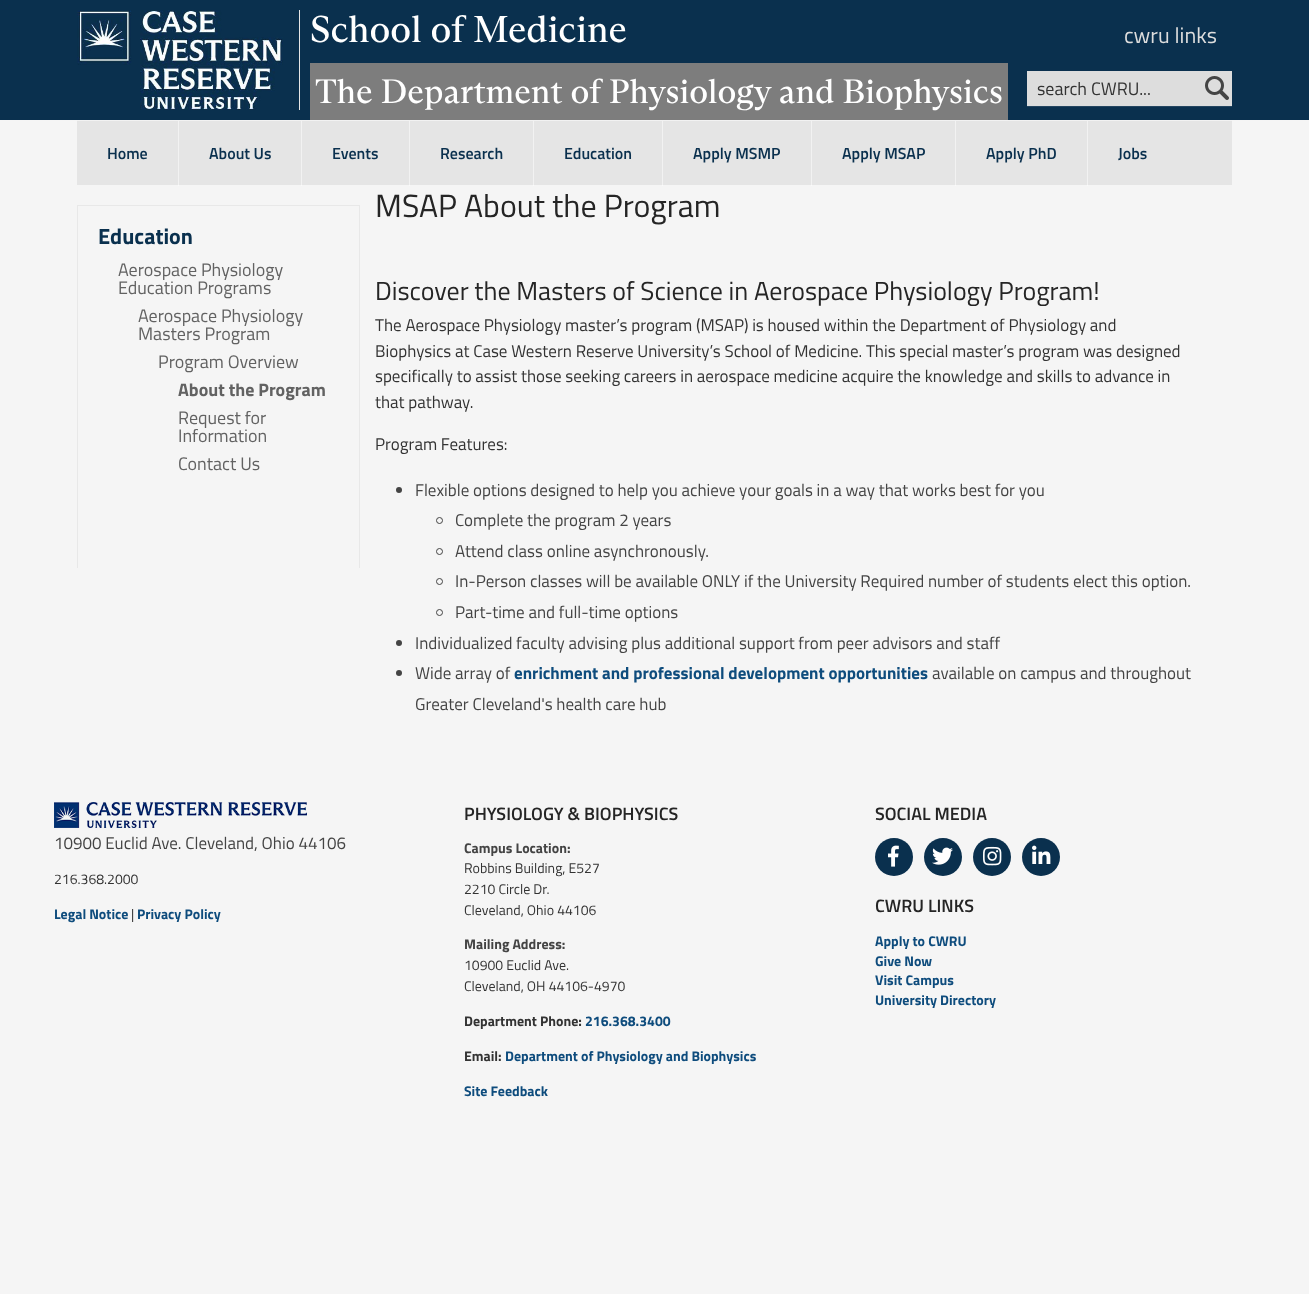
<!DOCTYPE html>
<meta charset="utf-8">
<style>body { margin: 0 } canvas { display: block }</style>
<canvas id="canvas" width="1309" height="1294"></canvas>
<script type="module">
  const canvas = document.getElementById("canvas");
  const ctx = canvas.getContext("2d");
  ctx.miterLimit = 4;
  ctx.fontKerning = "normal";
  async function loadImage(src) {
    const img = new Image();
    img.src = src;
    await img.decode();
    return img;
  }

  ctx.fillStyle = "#f5f5f5";
  ctx.fillRect(0, 0, 1309, 1294);
  ctx.fillStyle = "#fafafa";
  ctx.fillRect(1087, 185, 1, 1);
  ctx.fillRect(955, 185, 1, 1);
  ctx.fillRect(811, 185, 1, 1);
  ctx.fillRect(662, 185, 1, 1);
  ctx.fillRect(533, 185, 1, 1);
  ctx.fillRect(409, 185, 1, 1);
  ctx.fillRect(301, 185, 1, 1);
  ctx.fillRect(178, 185, 1, 1);
  ctx.fillStyle = "#0a304e";
  ctx.fillRect(0, 0, 1309, 120);
  ctx.fillStyle = "#e6e6e6";
  ctx.fillRect(299, 10, 1, 100);
  ctx.drawImage(await loadImage("img1.png"), 77, 10, 206, 100);
  ctx.font = "37.5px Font";
  ctx.fillStyle = "#ffffff";
  ctx.fillText("School of Medicine", 310, 42);
  ctx.fillStyle = "#7d7d7d";
  ctx.fillRect(310, 63, 698, 57);
  ctx.font = "34px Font";
  ctx.fillStyle = "#ffffff";
  ctx.fillText("The Department of Physiology and Biophysics", 315, 103);
  ctx.fillStyle = "#234560";
  ctx.fillRect(1027, 106, 205, 1);
  ctx.fillStyle = "#dddddd";
  ctx.fillRect(1027, 71, 205, 35);
  ctx.font = "18px Titillium Web";
  ctx.fillStyle = "#333333";
  ctx.fillText("search CWRU...", 1037, 95);
  ctx.drawImage(await loadImage("img2.png"), 1205, 76, 24, 24);
  ctx.font = "22px Titillium Web";
  ctx.fillStyle = "#dddddd";
  ctx.fillText("cwru links", 1124, 43);
  ctx.fillStyle = "#e5e5e5";
  ctx.fillRect(77, 121, 1155, 64);
  ctx.fillStyle = "#f2f2f2";
  ctx.fillRect(1087, 121, 1, 64);
  ctx.fillRect(955, 121, 1, 64);
  ctx.fillRect(811, 121, 1, 64);
  ctx.fillRect(662, 121, 1, 64);
  ctx.fillRect(533, 121, 1, 64);
  ctx.fillRect(409, 121, 1, 64);
  ctx.fillRect(301, 121, 1, 64);
  ctx.fillRect(178, 121, 1, 64);
  ctx.fillRect(77, 120, 1155, 1);
  ctx.font = "600 16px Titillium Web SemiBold";
  ctx.fillStyle = "#0a304e";
  ctx.fillText("Home", 107, 159);
  ctx.fillText("About Us", 209, 159);
  ctx.fillText("Events", 332, 159);
  ctx.fillText("Research", 440, 159);
  ctx.fillText("Education", 564, 159);
  ctx.fillText("Apply MSMP", 693, 159);
  ctx.fillText("Apply MSAP", 842, 159);
  ctx.fillText("Apply PhD", 986, 159);
  ctx.fillText("Jobs", 1118, 159);
  ctx.fillStyle = "#e8e8e8";
  ctx.fillRect(77, 205, 283, 1);
  ctx.fillRect(359, 205, 1, 363);
  ctx.fillRect(77, 205, 1, 363);
  ctx.font = "bold 22px Titillium Web";
  ctx.fillStyle = "#0a304e";
  ctx.fillText("Education", 98, 244);
  ctx.font = "18px Titillium Web";
  ctx.fillStyle = "#626262";
  ctx.fillText("Aerospace Physiology", 118, 276);
  ctx.fillText("Education Programs", 118, 294);
  ctx.fillText("Aerospace Physiology", 138, 322);
  ctx.fillText("Masters Program", 138, 340);
  ctx.fillText("Program Overview", 158, 368);
  ctx.font = "bold 18px Titillium Web";
  ctx.fillText("About the Program", 178, 396);
  ctx.font = "18px Titillium Web";
  ctx.fillText("Request for", 178, 424);
  ctx.fillText("Information", 178, 442);
  ctx.fillText("Contact Us", 178, 470);
  ctx.font = "32px Titillium Web";
  ctx.fillStyle = "#252525";
  ctx.fillText("MSAP About the Program", 375, 217);
  ctx.font = "26px Titillium Web";
  ctx.fillText("Discover the Masters of Science in Aerospace Physiology Program!", 375, 300);
  ctx.font = "17px Titillium Web";
  ctx.fillStyle = "#333333";
  ctx.fillText("The Aerospace Physiology master’s program (MSAP) is housed within the Department of Physiology and", 375, 331);
  ctx.fillText("Biophysics at Case Western Reserve University’s School of Medicine. This special master’s program was designed", 375, 357);
  ctx.fillText("specifically to assist those seeking careers in aerospace medicine acquire the knowledge and skills to advance in", 375, 382);
  ctx.fillText("that pathway.", 375, 408);
  ctx.fillText("Program Features:", 375, 450);
  ctx.fillStyle = "#444444";
  ctx.beginPath();
  ctx.arc(399, 490, 3, 0, Math.PI * 2);
  ctx.fill();
  ctx.fillText("Flexible options designed to help you achieve your goals in a way that works best for you", 415, 496);
  ctx.beginPath();
  ctx.arc(439.5, 520.5, 3, 0, Math.PI * 2);
  ctx.strokeStyle = "#444444";
  ctx.stroke();
  ctx.fillText("Complete the program 2 years", 455, 526);
  ctx.beginPath();
  ctx.arc(439.5, 551.5, 3, 0, Math.PI * 2);
  ctx.stroke();
  ctx.fillText("Attend class online asynchronously.", 455, 557);
  ctx.beginPath();
  ctx.arc(439.5, 581.5, 3, 0, Math.PI * 2);
  ctx.stroke();
  ctx.fillText("In-Person classes will be available ONLY if the University Required number of students elect this option.", 455, 587);
  ctx.beginPath();
  ctx.arc(439.5, 612.5, 3, 0, Math.PI * 2);
  ctx.stroke();
  ctx.fillText("Part-time and full-time options", 455, 618);
  ctx.beginPath();
  ctx.arc(399, 643, 3, 0, Math.PI * 2);
  ctx.fill();
  ctx.fillText("Individualized faculty advising plus additional support from peer advisors and staff", 415, 649);
  ctx.beginPath();
  ctx.arc(399, 673, 3, 0, Math.PI * 2);
  ctx.fill();
  ctx.fillText("Wide array of", 415, 679);
  ctx.font = "bold 17px Titillium Web";
  ctx.fillStyle = "#0e4c7d";
  ctx.fillText("enrichment and professional development opportunities", 514, 679);
  ctx.font = "17px Titillium Web";
  ctx.fillStyle = "#444444";
  ctx.fillText("available on campus and throughout", 932, 679);
  ctx.fillText("Greater Cleveland's health care hub", 415, 710);
  ctx.font = "600 18px Titillium Web SemiBold";
  ctx.fillStyle = "#252525";
  ctx.fillText("PHYSIOLOGY & BIOPHYSICS", 464, 820);
  ctx.font = "bold 14px Titillium Web";
  ctx.fillStyle = "#444444";
  ctx.fillText("Campus Location:", 464, 853);
  ctx.font = "14px Titillium Web";
  ctx.fillStyle = "#333333";
  ctx.fillText("Robbins Building, E527", 464, 873);
  ctx.fillText("2210 Circle Dr.", 464, 894);
  ctx.fillText("Cleveland, Ohio 44106", 464, 915);
  ctx.font = "bold 14px Titillium Web";
  ctx.fillStyle = "#444444";
  ctx.fillText("Mailing Address:", 464, 949);
  ctx.font = "14px Titillium Web";
  ctx.fillStyle = "#333333";
  ctx.fillText("10900 Euclid Ave.", 464, 970);
  ctx.fillText("Cleveland, OH 44106-4970", 464, 991);
  ctx.font = "bold 14px Titillium Web";
  ctx.fillText("Department Phone:", 464, 1026);
  ctx.fillStyle = "#0e4c7d";
  ctx.fillText("216.368.3400", 585, 1026);
  ctx.fillStyle = "#333333";
  ctx.fillText("Email:", 464, 1061);
  ctx.fillStyle = "#0e4c7d";
  ctx.fillText("Department of Physiology and Biophysics", 505, 1061);
  ctx.fillText("Site Feedback", 464, 1096);
  ctx.font = "600 18px Titillium Web SemiBold";
  ctx.fillStyle = "#252525";
  ctx.fillText("SOCIAL MEDIA", 875, 820);
  ctx.fillStyle = "#0a304e";
  ctx.beginPath();
  ctx.arc(894, 857, 19, 0, Math.PI * 2);
  ctx.fill();
  ctx.drawImage(await loadImage("img3.png"), 888, 845, 11, 22);
  ctx.beginPath();
  ctx.arc(943, 857, 19, 0, Math.PI * 2);
  ctx.fill();
  ctx.drawImage(await loadImage("img4.png"), 932, 847, 21, 18);
  ctx.beginPath();
  ctx.arc(992, 857, 19, 0, Math.PI * 2);
  ctx.fill();
  ctx.drawImage(await loadImage("img5.png"), 983, 846, 19, 20);
  ctx.beginPath();
  ctx.arc(1041, 857, 19, 0, Math.PI * 2);
  ctx.fill();
  ctx.drawImage(await loadImage("img6.png"), 1032, 845, 19, 19);
  ctx.drawImage(await loadImage("img7.png"), 54, 802, 253, 26);
  ctx.font = "17px Titillium Web";
  ctx.fillStyle = "#444444";
  ctx.fillText("10900 Euclid Ave. Cleveland, Ohio 44106", 54, 849);
  ctx.font = "14px Titillium Web";
  ctx.fillStyle = "#333333";
  ctx.fillText("216.368.2000", 54, 884);
  ctx.font = "bold 14px Titillium Web";
  ctx.fillStyle = "#0e4c7d";
  ctx.fillText("Legal Notice", 54, 919);
  ctx.font = "14px Titillium Web";
  ctx.fillStyle = "#333333";
  ctx.fillText("|", 131, 919);
  ctx.font = "bold 14px Titillium Web";
  ctx.fillStyle = "#0e4c7d";
  ctx.fillText("Privacy Policy", 137, 919);
  ctx.font = "600 18px Titillium Web SemiBold";
  ctx.fillStyle = "#252525";
  ctx.fillText("CWRU LINKS", 875, 912);
  ctx.font = "bold 14px Titillium Web";
  ctx.fillStyle = "#0e4c7d";
  ctx.fillText("Apply to CWRU", 875, 946);
  ctx.fillText("Give Now", 875, 966);
  ctx.fillText("Visit Campus", 875, 985);
  ctx.fillText("University Directory", 875, 1005);
</script>
